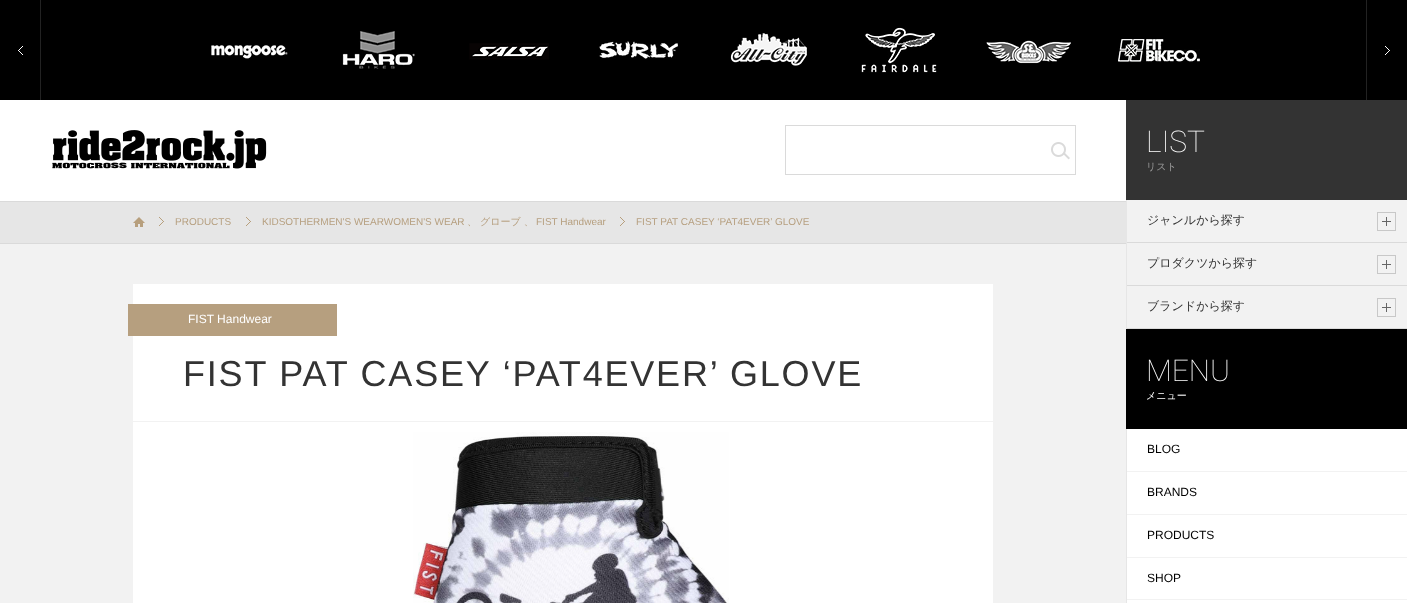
<!DOCTYPE html>
<meta charset="utf-8">
<style>body { margin: 0 } canvas { display: block }</style>
<canvas id="canvas" width="1407" height="603"></canvas>
<script type="module">
  const canvas = document.getElementById("canvas");
  const ctx = canvas.getContext("2d");
  ctx.miterLimit = 4;
  ctx.fontKerning = "normal";
  async function loadImage(src) {
    const img = new Image();
    img.src = src;
    await img.decode();
    return img;
  }

  ctx.fillStyle = "#f2f2f2";
  ctx.fillRect(0, 0, 1407, 603);
  ctx.fillStyle = "#000000";
  ctx.fillRect(0, 0, 1407, 100);
  ctx.drawImage(await loadImage("img1.png"), 18, 46, 5, 9);
  ctx.fillStyle = "#222222";
  ctx.fillRect(40, 0, 1, 100);
  ctx.drawImage(await loadImage("img2.png"), 1385, 46, 5, 9);
  ctx.fillRect(1366, 0, 1, 100);
  ctx.drawImage(await loadImage("img3.png"), 211, 45, 77, 14);
  ctx.drawImage(await loadImage("img4.png"), 342, 31, 73, 38);
  ctx.drawImage(await loadImage("img5.png"), 469, 43, 80, 17);
  ctx.drawImage(await loadImage("img6.png"), 599, 41, 79, 18);
  ctx.drawImage(await loadImage("img7.png"), 730, 33, 77, 33);
  ctx.drawImage(await loadImage("img8.png"), 861, 27, 76, 46);
  ctx.drawImage(await loadImage("img9.png"), 986, 40, 85, 24);
  ctx.drawImage(await loadImage("img10.png"), 1118, 39, 82, 23);
  ctx.fillStyle = "#ffffff";
  ctx.fillRect(0, 100, 1126, 101);
  ctx.drawImage(await loadImage("img11.png"), 52, 130, 215, 39);
  ctx.strokeStyle = "#dadada";
  ctx.strokeRect(785.5, 125.5, 290, 49);
  ctx.drawImage(await loadImage("img12.png"), 1051, 142, 19, 18);
  ctx.fillStyle = "#e6e6e6";
  ctx.fillRect(0, 202, 1126, 41);
  ctx.fillStyle = "#dadada";
  ctx.fillRect(0, 201, 1126, 1);
  ctx.fillRect(0, 243, 1126, 1);
  ctx.drawImage(await loadImage("img13.png"), 133, 217, 12, 10);
  ctx.drawImage(await loadImage("img14.png"), 159, 217, 5, 9);
  ctx.font = "10px Liberation Sans";
  ctx.fillStyle = "#b69f7f";
  ctx.fillText("PRODUCTS", 175, 225);
  ctx.drawImage(await loadImage("img14.png"), 246, 217, 5, 9);
  ctx.fillText("KIDSOTHERMEN'S WEARWOMEN'S WEAR", 262, 225);
  ctx.font = "500 10px WenQuanYi Zen Hei";
  ctx.fillText("、 グローブ 、", 467, 225);
  ctx.font = "10px Liberation Sans";
  ctx.fillText("FIST Handwear", 536, 225);
  ctx.drawImage(await loadImage("img14.png"), 620, 217, 5, 9);
  ctx.fillText("FIST PAT CASEY ‘PAT4EVER’ GLOVE", 636, 225);
  ctx.fillStyle = "#ffffff";
  ctx.fillRect(133, 284, 860, 137);
  ctx.fillStyle = "#b69f7f";
  ctx.fillRect(128, 304, 209, 32);
  ctx.font = "12px Liberation Sans";
  ctx.fillStyle = "#ffffff";
  ctx.fillText("FIST Handwear", 188, 323);
  ctx.letterSpacing = "1.8px";
  ctx.font = "36px Liberation Sans";
  ctx.fillStyle = "#333333";
  ctx.fillText("FIST PAT CASEY ‘PAT4EVER’ GLOVE", 183, 386);
  ctx.fillStyle = "#ffffff";
  ctx.fillRect(133, 422, 860, 181);
  ctx.drawImage(await loadImage("img15.png"), 413, 432, 316, 171);
  ctx.fillRect(1127, 429, 280, 174);
  ctx.fillStyle = "#e6e6e6";
  ctx.fillRect(1126, 200, 1, 403);
  ctx.fillStyle = "#333333";
  ctx.fillRect(1126, 100, 281, 100);
  ctx.letterSpacing = "0px";
  ctx.font = "100 30px Roboto";
  ctx.fillStyle = "#ffffff";
  ctx.fillText("LIST", 1146, 152);
  ctx.font = "500 10px WenQuanYi Zen Hei";
  ctx.fillStyle = "#999999";
  ctx.fillText("リスト", 1146, 170);
  ctx.fillStyle = "#dadada";
  ctx.fillRect(1127, 242, 280, 1);
  ctx.font = "500 12px WenQuanYi Zen Hei";
  ctx.fillStyle = "#333333";
  ctx.fillText("ジャンルから探す", 1147, 224);
  ctx.drawImage(await loadImage("img16.png"), 1377, 212, 19, 19);
  ctx.fillStyle = "#dadada";
  ctx.fillRect(1127, 285, 280, 1);
  ctx.fillStyle = "#333333";
  ctx.fillText("プロダクツから探す", 1147, 267);
  ctx.drawImage(await loadImage("img16.png"), 1377, 255, 19, 19);
  ctx.fillStyle = "#dadada";
  ctx.fillRect(1127, 328, 280, 1);
  ctx.fillStyle = "#333333";
  ctx.fillText("ブランドから探す", 1147, 310);
  ctx.drawImage(await loadImage("img16.png"), 1377, 298, 19, 19);
  ctx.fillStyle = "#000000";
  ctx.fillRect(1126, 329, 281, 100);
  ctx.font = "100 30px Roboto";
  ctx.fillStyle = "#ffffff";
  ctx.fillText("MENU", 1146, 381);
  ctx.font = "500 10px WenQuanYi Zen Hei";
  ctx.fillText("メニュー", 1146, 399);
  ctx.fillStyle = "#f2f2f2";
  ctx.fillRect(1127, 471, 280, 1);
  ctx.font = "12px Liberation Sans";
  ctx.fillStyle = "#000000";
  ctx.fillText("BLOG", 1147, 453);
  ctx.fillStyle = "#f2f2f2";
  ctx.fillRect(1127, 514, 280, 1);
  ctx.fillStyle = "#000000";
  ctx.fillText("BRANDS", 1147, 496);
  ctx.fillStyle = "#f2f2f2";
  ctx.fillRect(1127, 557, 280, 1);
  ctx.fillStyle = "#000000";
  ctx.fillText("PRODUCTS", 1147, 539);
  ctx.fillStyle = "#f2f2f2";
  ctx.fillRect(1127, 599, 280, 1);
  ctx.fillStyle = "#000000";
  ctx.fillText("SHOP", 1147, 582);
</script>
